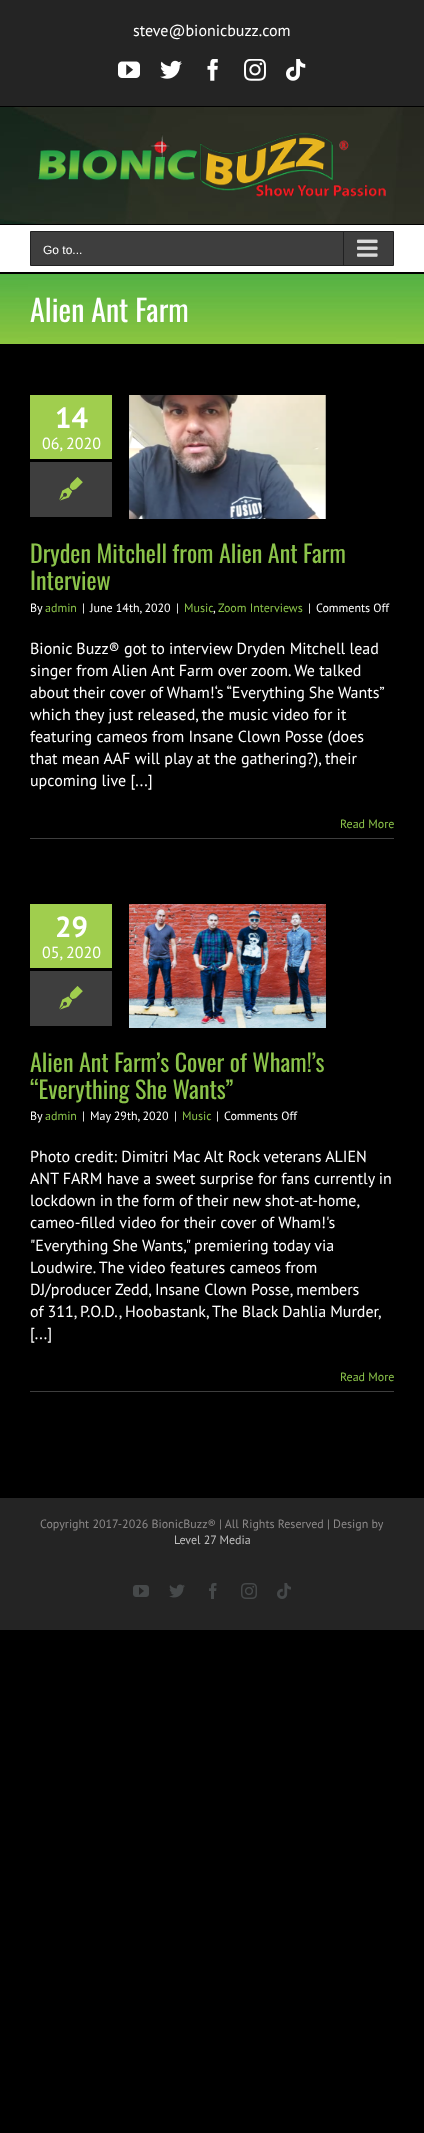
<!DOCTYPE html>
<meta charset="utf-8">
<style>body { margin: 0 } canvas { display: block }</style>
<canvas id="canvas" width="424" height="2133"></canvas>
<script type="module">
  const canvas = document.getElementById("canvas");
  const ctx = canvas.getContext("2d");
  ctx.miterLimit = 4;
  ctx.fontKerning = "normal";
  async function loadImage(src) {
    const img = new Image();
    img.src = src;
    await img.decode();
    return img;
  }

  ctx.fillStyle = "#000000";
  ctx.fillRect(0, 0, 424, 2133);
  ctx.fillStyle = "#242424";
  ctx.fillRect(0, 0, 424, 106);
  ctx.font = "16px PT Sans";
  ctx.fillStyle = "#ffffff";
  ctx.fillText("steve@bionicbuzz.com", 133, 36);
  ctx.drawImage(await loadImage("img1.png"), 118, 61, 22, 17);
  ctx.drawImage(await loadImage("img2.png"), 160, 60, 22, 19);
  ctx.drawImage(await loadImage("img3.png"), 207, 59, 11, 22);
  ctx.drawImage(await loadImage("img4.png"), 244, 59, 22, 22);
  ctx.drawImage(await loadImage("img5.png"), 286, 59, 20, 22);
  ctx.drawImage(await loadImage("img6.png"), 0, 107, 424, 117);
  ctx.drawImage(await loadImage("img7.png"), 38, 133, 348, 64);
  ctx.fillRect(0, 225, 424, 47);
  ctx.fillStyle = "#3e3e3e";
  ctx.beginPath();
  ctx.rect(30.5, 231.5, 363, 34);
  ctx.fill();
  ctx.strokeStyle = "#212122";
  ctx.stroke();
  ctx.font = "12px Liberation Sans";
  ctx.fillStyle = "#ffffff";
  ctx.fillText("Go to...", 43, 254);
  ctx.fillStyle = "#212122";
  ctx.fillRect(343, 232, 1, 33);
  ctx.drawImage(await loadImage("img8.png"), 357, 239, 21, 18);
  ctx.drawImage(await loadImage("img9.png"), 0, 274, 424, 70);
  ctx.font = "30px Oswald";
  ctx.fillStyle = "#ffffff";
  ctx.fillText("Alien Ant Farm", 30, 322);
  ctx.fillStyle = "#a0ce4e";
  ctx.fillRect(30, 395, 82, 64);
  ctx.font = "bold 29px PT Sans";
  ctx.fillStyle = "#ffffff";
  ctx.fillText("14", 55, 428);
  ctx.font = "16px PT Sans";
  ctx.fillText("06, 2020", 42, 449);
  ctx.fillStyle = "#3e3e3e";
  ctx.fillRect(30, 462, 82, 55);
  ctx.drawImage(await loadImage("img10.png"), 59, 477, 24, 24);
  ctx.drawImage(await loadImage("img11.png"), 129, 395, 197, 124);
  ctx.font = "24px Oswald";
  ctx.fillStyle = "#8bc34a";
  ctx.fillText("Dryden Mitchell from Alien Ant Farm", 30, 563);
  ctx.fillText("Interview", 30, 590);
  ctx.font = "12px PT Sans";
  ctx.fillStyle = "#ffffff";
  ctx.fillText("By", 30, 612);
  ctx.fillStyle = "#8bc34a";
  ctx.fillText("admin", 45, 612);
  ctx.fillStyle = "#ffffff";
  ctx.fillText("|", 82, 612);
  ctx.fillText("June 14th, 2020", 90, 612);
  ctx.fillText("|", 176, 612);
  ctx.fillStyle = "#8bc34a";
  ctx.fillText("Music", 184, 612);
  ctx.fillStyle = "#ffffff";
  ctx.fillText(",", 213, 612);
  ctx.fillStyle = "#8bc34a";
  ctx.fillText("Zoom Interviews", 218, 612);
  ctx.fillStyle = "#ffffff";
  ctx.fillText("|", 308, 612);
  ctx.fillText("Comments Off", 316, 612);
  ctx.font = "16px PT Sans";
  ctx.fillText("Bionic Buzz® got to interview Dryden Mitchell lead", 30, 654);
  ctx.fillText("singer from Alien Ant Farm over zoom. We talked", 30, 676);
  ctx.wordSpacing = "-0.25px";
  ctx.fillText("about their cover of Wham!‘s “Everything She Wants”", 30, 698);
  ctx.wordSpacing = "0px";
  ctx.fillText("which they just released, the music video for it", 30, 720);
  ctx.fillText("featuring cameos from Insane Clown Posse (does", 30, 742);
  ctx.fillText("that mean AAF will play at the gathering?), their", 30, 764);
  ctx.fillText("upcoming live [...]", 30, 786);
  ctx.fillStyle = "#3e3e3e";
  ctx.fillRect(30, 838, 364, 1);
  ctx.font = "12px PT Sans";
  ctx.fillStyle = "#8bc34a";
  ctx.fillText("Read More", 340, 828);
  ctx.fillStyle = "#a0ce4e";
  ctx.fillRect(30, 904, 82, 64);
  ctx.font = "bold 29px PT Sans";
  ctx.fillStyle = "#ffffff";
  ctx.fillText("29", 55, 937);
  ctx.font = "16px PT Sans";
  ctx.fillText("05, 2020", 42, 958);
  ctx.fillStyle = "#3e3e3e";
  ctx.fillRect(30, 971, 82, 55);
  ctx.drawImage(await loadImage("img10.png"), 59, 986, 24, 24);
  ctx.drawImage(await loadImage("img12.png"), 129, 904, 197, 124);
  ctx.font = "24px Oswald";
  ctx.fillStyle = "#8bc34a";
  ctx.fillText("Alien Ant Farm’s Cover of Wham!’s", 30, 1072);
  ctx.fillText("“Everything She Wants”", 30, 1099);
  ctx.font = "12px PT Sans";
  ctx.fillStyle = "#ffffff";
  ctx.fillText("By", 30, 1120);
  ctx.fillStyle = "#8bc34a";
  ctx.fillText("admin", 45, 1120);
  ctx.fillStyle = "#ffffff";
  ctx.fillText("|", 82, 1120);
  ctx.fillText("May 29th, 2020", 90, 1120);
  ctx.fillText("|", 174, 1120);
  ctx.fillStyle = "#8bc34a";
  ctx.fillText("Music", 182, 1120);
  ctx.fillStyle = "#ffffff";
  ctx.fillText("|", 216, 1120);
  ctx.fillText("Comments Off", 224, 1120);
  ctx.font = "16px PT Sans";
  ctx.fillText("Photo credit: Dimitri Mac", 30, 1162);
  ctx.fillText("Alt Rock veterans ALIEN", 204, 1162);
  ctx.fillText("ANT FARM have a sweet surprise for fans currently in", 30, 1184);
  ctx.wordSpacing = "-0.25px";
  ctx.fillText("lockdown in the form of their new shot-at-home,", 30, 1206);
  ctx.wordSpacing = "0px";
  ctx.fillText("cameo-filled video for their cover of Wham!'s", 30, 1228);
  ctx.fillText("\"Everything She Wants,\" premiering today via", 30, 1251);
  ctx.fillText("Loudwire. The video features cameos from", 30, 1273);
  ctx.fillText("DJ/producer Zedd, Insane Clown Posse, members", 30, 1295);
  ctx.wordSpacing = "-0.25px";
  ctx.fillText("of 311, P.O.D., Hoobastank, The Black Dahlia Murder,", 30, 1317);
  ctx.wordSpacing = "0px";
  ctx.fillText("[...]", 30, 1339);
  ctx.fillStyle = "#3e3e3e";
  ctx.fillRect(30, 1391, 364, 1);
  ctx.font = "12px PT Sans";
  ctx.fillStyle = "#8bc34a";
  ctx.fillText("Read More", 340, 1381);
  ctx.fillStyle = "#242424";
  ctx.fillRect(0, 1498, 424, 132);
  ctx.fillStyle = "#8c8989";
  ctx.fillText("Copyright 2017-2026 BionicBuzz® | All Rights Reserved | Design by", 40, 1528);
  ctx.fillStyle = "#bfbfbf";
  ctx.fillText("Level 27 Media", 174, 1544);
  ctx.drawImage(await loadImage("img13.png"), 133, 1585, 16, 12);
  ctx.drawImage(await loadImage("img14.png"), 169, 1584, 16, 14);
  ctx.drawImage(await loadImage("img15.png"), 209, 1583, 8, 16);
  ctx.drawImage(await loadImage("img16.png"), 241, 1583, 16, 16);
  ctx.drawImage(await loadImage("img17.png"), 277, 1583, 14, 16);
</script>
